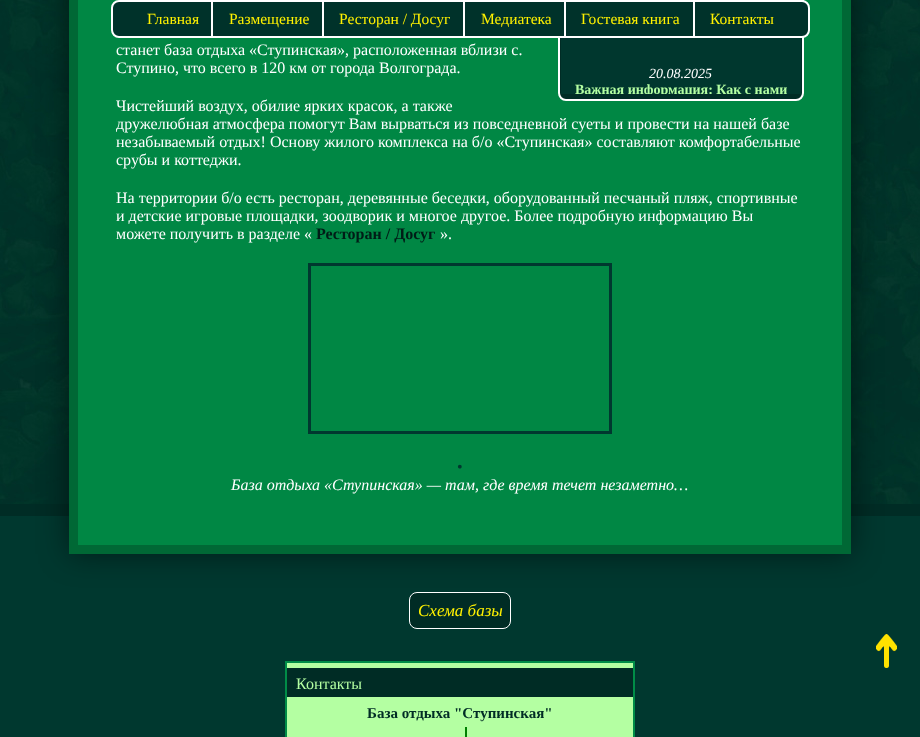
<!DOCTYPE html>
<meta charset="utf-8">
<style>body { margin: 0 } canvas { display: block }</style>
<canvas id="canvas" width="920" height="737"></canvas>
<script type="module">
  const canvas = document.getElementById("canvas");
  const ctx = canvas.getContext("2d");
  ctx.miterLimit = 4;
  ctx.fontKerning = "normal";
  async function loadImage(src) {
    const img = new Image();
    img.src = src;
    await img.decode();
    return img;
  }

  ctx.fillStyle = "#ffffff";
  ctx.fillRect(0, 0, 920, 737);
  ctx.drawImage(await loadImage("img1.png"), 0, 0, 920, 504);
  ctx.fillStyle = "#00382f";
  ctx.fillRect(0, 516, 920, 221);
  ctx.fillStyle = "#002c25";
  ctx.fillRect(0, 504, 920, 12);
  ctx.beginPath();
  ctx.roundRect(409.5, 592.5, 101, 36, 7.5);
  ctx.fill();
  ctx.strokeStyle = "#ffffff";
  ctx.stroke();
  ctx.fillStyle = "rgba(0, 0, 0, 0.5)";
  ctx.filter = "blur(15px)";
  ctx.beginPath();
  ctx.rect(69, -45, 782, 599);
  ctx.fill();
  ctx.filter = "none";
  ctx.fillStyle = "#008744";
  ctx.beginPath();
  ctx.rect(73.5, -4.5, 773, 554);
  ctx.fill();
  ctx.strokeStyle = "#006835";
  ctx.lineWidth = 9;
  ctx.stroke();
  ctx.fillStyle = "#00322a";
  ctx.beginPath();
  ctx.roundRect(112, 1, 103, 36, [7, 0, 0, 7]);
  ctx.fill();
  ctx.strokeStyle = "#ffffff";
  ctx.lineWidth = 2;
  ctx.stroke();
  ctx.font = "15.5px Liberation Serif";
  ctx.fillStyle = "#fff100";
  ctx.fillText("Главная", 147, 24);
  ctx.fillStyle = "#00322a";
  ctx.fillRect(214, 2, 108, 34);
  ctx.strokeRect(212, 1, 114, 36);
  ctx.fillStyle = "#fff100";
  ctx.fillText("Размещение", 229, 24);
  ctx.fillStyle = "#00322a";
  ctx.fillRect(324, 2, 139, 34);
  ctx.strokeRect(323, 1, 144, 36);
  ctx.fillStyle = "#fff100";
  ctx.fillText("Ресторан / Досуг", 339, 24);
  ctx.fillStyle = "#002c25";
  ctx.beginPath();
  ctx.roundRect(559, -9, 244, 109, 7);
  ctx.fill();
  ctx.stroke();
  ctx.fillStyle = "#00322a";
  ctx.fillRect(465, 2, 99, 34);
  ctx.strokeRect(464, 1, 104, 36);
  ctx.fillStyle = "#fff100";
  ctx.fillText("Медиатека", 481, 24);
  ctx.fillStyle = "#00322a";
  ctx.fillRect(566, 2, 127, 34);
  ctx.strokeRect(565, 1, 132, 36);
  ctx.fillStyle = "#fff100";
  ctx.fillText("Гостевая книга", 581, 24);
  ctx.fillStyle = "#00322a";
  ctx.beginPath();
  ctx.roundRect(694, 1, 115, 36, [0, 7, 7, 0]);
  ctx.fill();
  ctx.stroke();
  ctx.fillStyle = "#fff100";
  ctx.fillText("Контакты", 710, 24);
  ctx.font = "16px Liberation Serif";
  ctx.fillStyle = "#ffffff";
  ctx.fillText("станет база отдыха «Ступинская», расположенная вблизи с.", 116, 55);
  ctx.fillText("Ступино, что всего в 120 км от города Волгограда.", 116, 73);
  ctx.fillText("Чистейший воздух, обилие ярких красок, а также", 116, 111);
  ctx.fillText("дружелюбная атмосфера помогут Вам вырваться из повседневной суеты и провести на нашей базе", 116, 129);
  ctx.fillText("незабываемый отдых! Основу жилого комплекса на б/о «Ступинская» составляют комфортабельные", 116, 147);
  ctx.fillText("срубы и коттеджи.", 116, 165);
  ctx.fillText("На территории б/о есть ресторан, деревянные беседки, оборудованный песчаный пляж, спортивные", 116, 203);
  ctx.fillText("и детские игровые площадки, зоодворик и многое другое. Более подробную информацию Вы", 116, 221);
  ctx.fillText("можете получить в разделе «", 116, 239);
  ctx.font = "bold 16px Liberation Serif";
  ctx.fillStyle = "#001c17";
  ctx.fillText("Ресторан / Досуг", 316, 239);
  ctx.font = "16px Liberation Serif";
  ctx.fillStyle = "#ffffff";
  ctx.fillText("».", 440, 239);
  ctx.strokeStyle = "#00382f";
  ctx.lineWidth = 3;
  ctx.strokeRect(309.5, 264.5, 301, 168);
  ctx.fillStyle = "#00382f";
  ctx.fillText("•", 457, 472);
  ctx.font = "italic 16px Liberation Serif";
  ctx.fillStyle = "#ffffff";
  ctx.fillText("База отдыха «Ступинская» — там, где время течет незаметно…", 231, 490);
  ctx.fillStyle = "#00372e";
  ctx.fillRect(561, 38, 240, 56);
  ctx.font = "italic 14px Liberation Serif";
  ctx.fillStyle = "#ffffff";
  ctx.fillText("20.08.2025", 649, 78);
  ctx.save();
  ctx.beginPath();
  ctx.rect(561, 0, 240, 94);
  ctx.clip();
  ctx.font = "bold 14px Liberation Serif";
  ctx.fillStyle = "#b4ffa2";
  ctx.fillText("Важная информация: Как с нами", 575, 94);
  ctx.restore();
  ctx.font = "italic 17px Liberation Serif";
  ctx.fillStyle = "#fff100";
  ctx.fillText("Схема базы", 418, 616);
  ctx.fillStyle = "#b4ffa2";
  ctx.beginPath();
  ctx.rect(286, 662, 348, 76);
  ctx.fill();
  ctx.strokeStyle = "#008c47";
  ctx.lineWidth = 2;
  ctx.stroke();
  ctx.fillStyle = "#002c25";
  ctx.fillRect(287, 668, 346, 29);
  ctx.font = "16px Liberation Serif";
  ctx.fillStyle = "#b4ffa2";
  ctx.fillText("Контакты", 296, 689);
  ctx.font = "bold 15px Liberation Serif";
  ctx.fillStyle = "#002c25";
  ctx.fillText("База отдыха \"Ступинская\"", 367, 718);
  ctx.fillStyle = "#008000";
  ctx.fillRect(465, 727, 2, 10);
  ctx.drawImage(await loadImage("img2.png"), 876, 634, 21, 34);
</script>
